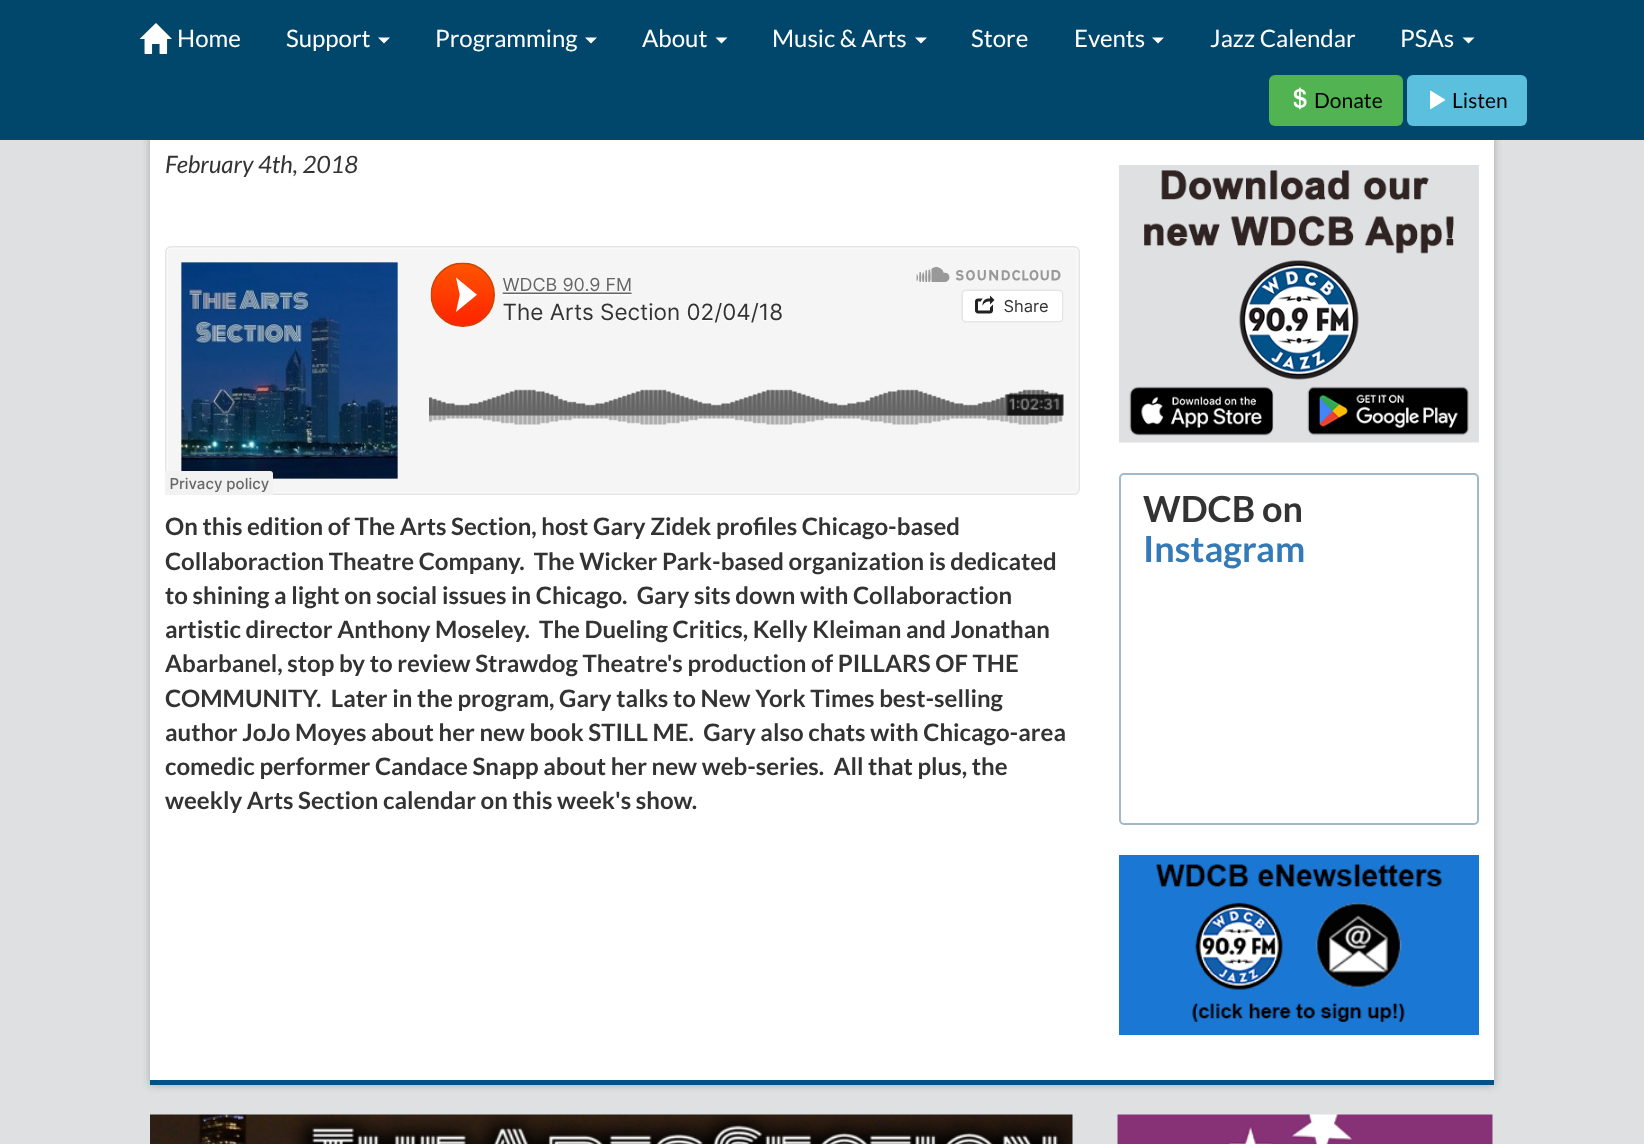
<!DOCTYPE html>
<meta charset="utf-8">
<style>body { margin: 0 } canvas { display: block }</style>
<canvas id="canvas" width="1644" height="1144"></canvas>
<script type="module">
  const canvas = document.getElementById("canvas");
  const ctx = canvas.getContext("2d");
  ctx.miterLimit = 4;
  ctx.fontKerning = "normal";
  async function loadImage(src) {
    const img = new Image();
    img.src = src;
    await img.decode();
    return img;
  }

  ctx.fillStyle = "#dee0e2";
  ctx.fillRect(0, 0, 1644, 1144);
  ctx.fillStyle = "rgba(0, 0, 0, 0.25)";
  ctx.filter = "blur(4px)";
  ctx.beginPath();
  ctx.rect(150, 17, 1344, 1068);
  ctx.fill();
  ctx.filter = "none";
  ctx.fillStyle = "#00476b";
  ctx.fillRect(0, 0, 1644, 140);
  ctx.drawImage(await loadImage("img1.png"), 139, 23, 33, 31);
  ctx.font = "24px Lato";
  ctx.fillStyle = "#ffffff";
  ctx.fillText("Home", 177, 47);
  ctx.fillText("Support", 286, 47);
  ctx.beginPath();
  ctx.moveTo(378, 37.5);
  ctx.lineTo(390, 37.5);
  ctx.lineTo(384, 43.5);
  ctx.closePath();
  ctx.fill();
  ctx.fillText("Programming", 435, 47);
  ctx.beginPath();
  ctx.moveTo(585, 37.5);
  ctx.lineTo(597, 37.5);
  ctx.lineTo(591, 43.5);
  ctx.closePath();
  ctx.fill();
  ctx.fillText("About", 642, 47);
  ctx.beginPath();
  ctx.moveTo(715.5, 37.5);
  ctx.lineTo(727.5, 37.5);
  ctx.lineTo(721.5, 43.5);
  ctx.closePath();
  ctx.fill();
  ctx.fillText("Music & Arts", 772, 47);
  ctx.beginPath();
  ctx.moveTo(915, 37.5);
  ctx.lineTo(927, 37.5);
  ctx.lineTo(921, 43.5);
  ctx.closePath();
  ctx.fill();
  ctx.fillText("Store", 971, 47);
  ctx.fillText("Events", 1074, 47);
  ctx.beginPath();
  ctx.moveTo(1152, 37.5);
  ctx.lineTo(1164, 37.5);
  ctx.lineTo(1158, 43.5);
  ctx.closePath();
  ctx.fill();
  ctx.fillText("Jazz Calendar", 1210, 47);
  ctx.fillText("PSAs", 1400, 47);
  ctx.beginPath();
  ctx.moveTo(1462.5, 37.5);
  ctx.lineTo(1474.5, 37.5);
  ctx.lineTo(1468.5, 43.5);
  ctx.closePath();
  ctx.fill();
  ctx.fillStyle = "#51b351";
  ctx.beginPath();
  ctx.roundRect(1269, 75, 134, 51, 6);
  ctx.fill();
  ctx.drawImage(await loadImage("img2.png"), 1293, 87, 14, 23);
  ctx.font = "21px Lato";
  ctx.fillStyle = "#000000";
  ctx.fillText("Donate", 1314, 108);
  ctx.fillStyle = "#5bc0de";
  ctx.beginPath();
  ctx.roundRect(1407, 75, 120, 51, 6);
  ctx.fill();
  ctx.drawImage(await loadImage("img3.png"), 1430, 90, 16, 20);
  ctx.fillStyle = "#000000";
  ctx.fillText("Listen", 1452, 108);
  ctx.fillStyle = "#ffffff";
  ctx.fillRect(150, 140, 1344, 940);
  ctx.fillStyle = "#005288";
  ctx.fillRect(150, 1080, 1344, 5);
  ctx.font = "italic 24px Lato";
  ctx.fillStyle = "#333333";
  ctx.fillText("February 4th, 2018", 165, 173);
  ctx.drawImage(await loadImage("img4.png"), 165, 246, 915, 249);
  ctx.font = "bold 24px Lato";
  ctx.fillText("On this edition of The Arts Section, host Gary Zidek profiles Chicago-based", 165, 535);
  ctx.fillText("Collaboraction Theatre Company.  The Wicker Park-based organization is dedicated", 165, 570);
  ctx.fillText("to shining a light on social issues in Chicago.  Gary sits down with Collaboraction", 165, 604);
  ctx.fillText("artistic director Anthony Moseley.  The Dueling Critics, Kelly Kleiman and Jonathan", 165, 638);
  ctx.fillText("Abarbanel, stop by to review Strawdog Theatre's production of PILLARS OF THE", 165, 672);
  ctx.fillText("COMMUNITY.  Later in the program, Gary talks to New York Times best-selling", 165, 707);
  ctx.fillText("author JoJo Moyes about her new book STILL ME.  Gary also chats with Chicago-area", 165, 741);
  ctx.fillText("comedic performer Candace Snapp about her new web-series.  All that plus, the", 165, 775);
  ctx.fillText("weekly Arts Section calendar on this week's show.", 165, 809);
  ctx.drawImage(await loadImage("img5.png"), 1119, 165, 360, 278);
  ctx.beginPath();
  ctx.roundRect(1120, 474, 358, 350, 4);
  ctx.strokeStyle = "#a2b8cb";
  ctx.lineWidth = 2;
  ctx.stroke();
  ctx.font = "bold 36px Lato";
  ctx.fillText("WDCB on", 1143, 522);
  ctx.fillStyle = "#337ab7";
  ctx.fillText("Instagram", 1143, 562);
  ctx.drawImage(await loadImage("img6.png"), 1119, 855, 360, 180);
  ctx.drawImage(await loadImage("img7.png"), 150, 1114, 923, 30);
  ctx.drawImage(await loadImage("img8.png"), 1117, 1114, 376, 30);
</script>
